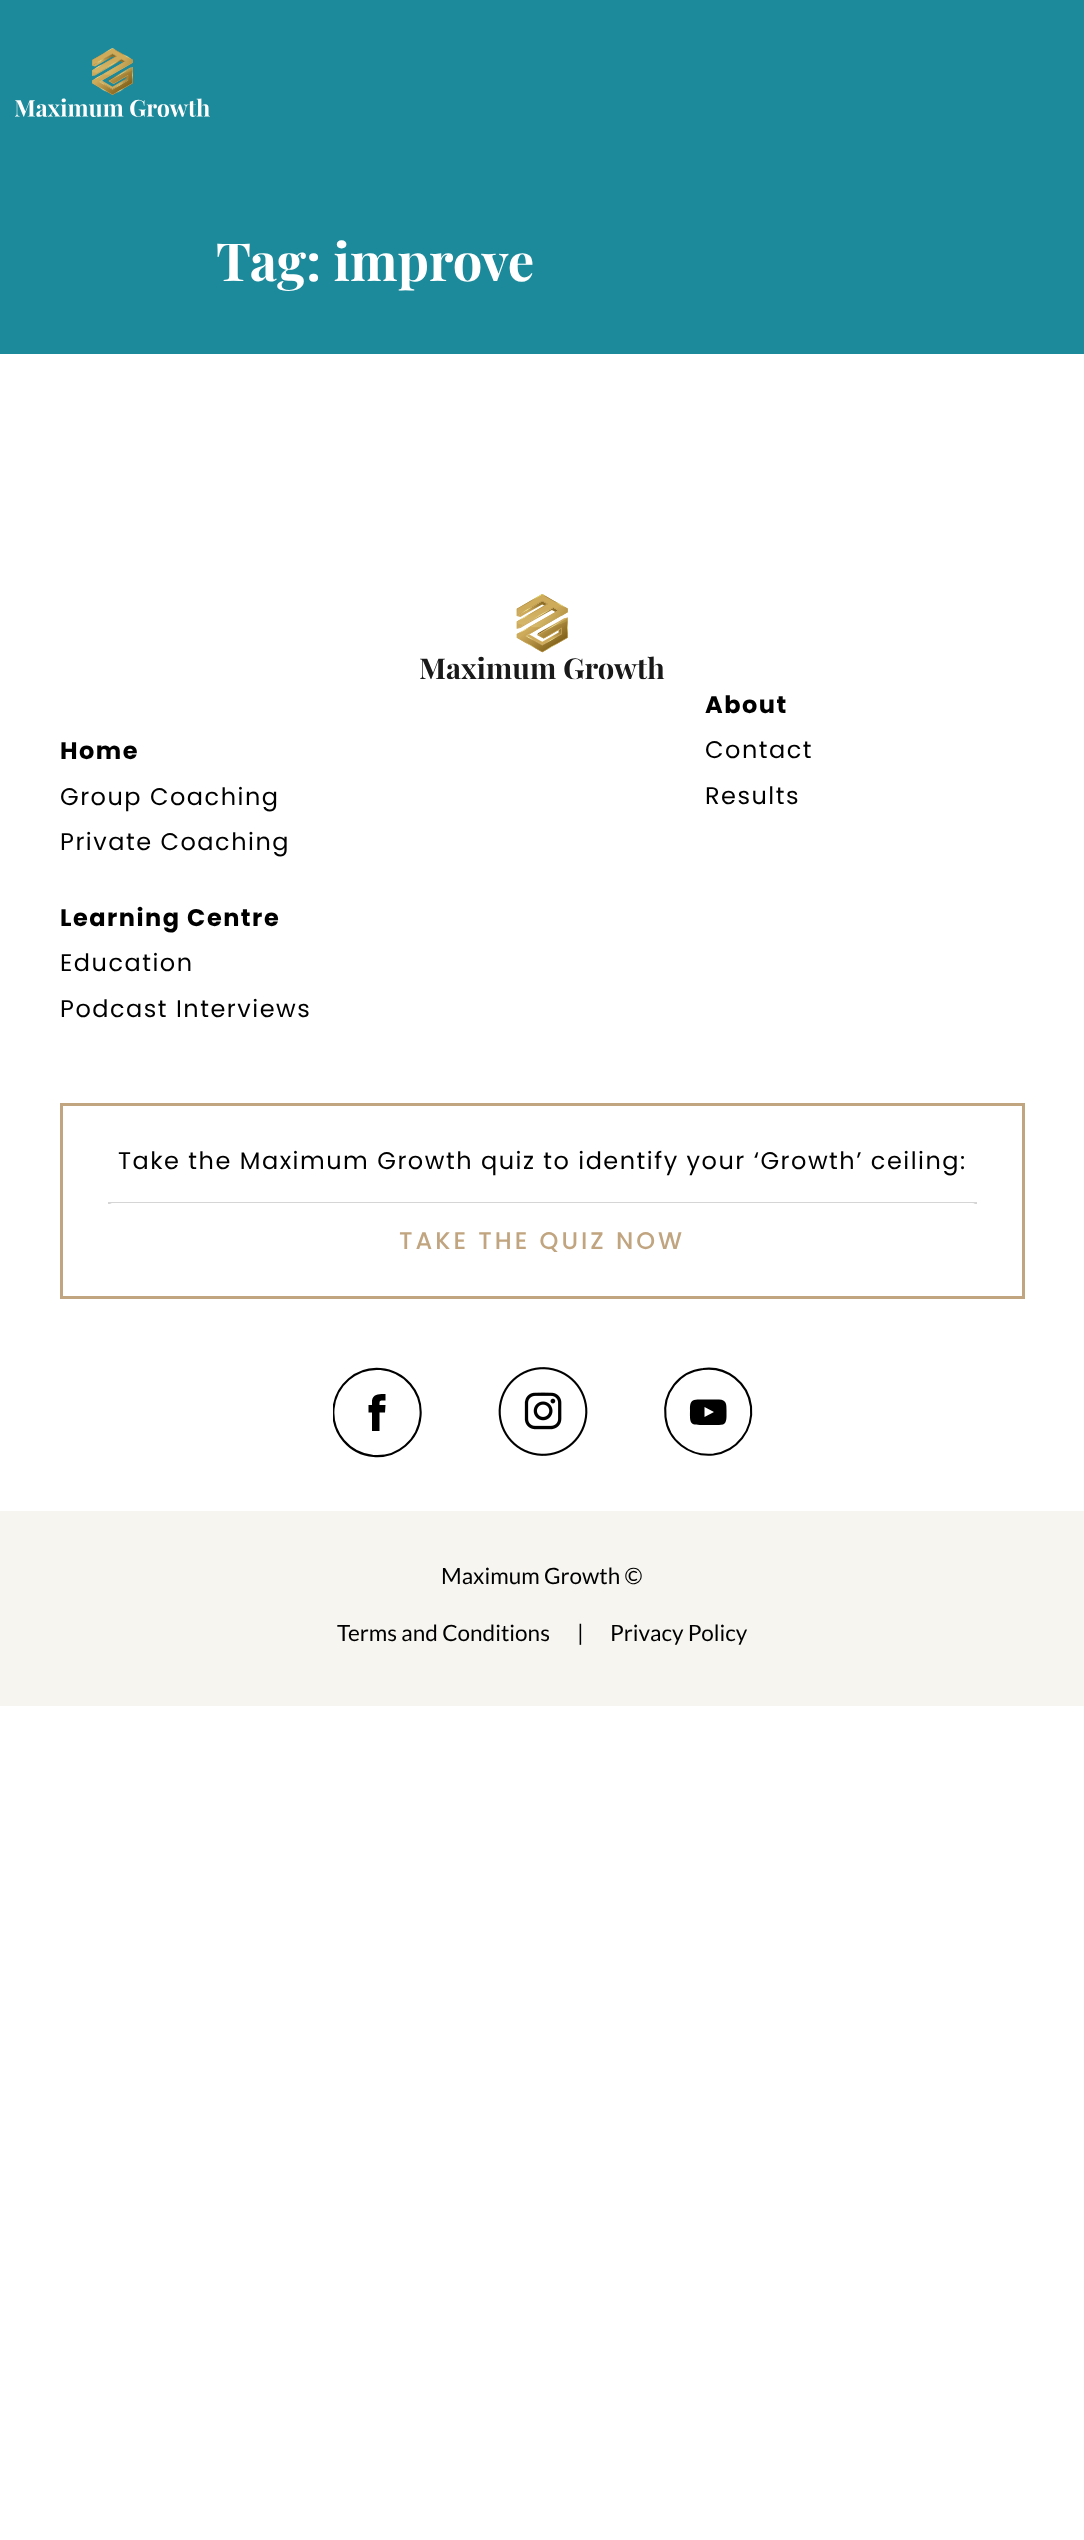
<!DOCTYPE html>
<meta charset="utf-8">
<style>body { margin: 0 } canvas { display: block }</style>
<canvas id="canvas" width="1084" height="2540"></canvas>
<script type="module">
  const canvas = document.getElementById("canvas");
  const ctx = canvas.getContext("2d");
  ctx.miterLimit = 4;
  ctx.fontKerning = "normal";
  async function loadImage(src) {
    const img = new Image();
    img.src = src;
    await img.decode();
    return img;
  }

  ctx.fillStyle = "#ffffff";
  ctx.fillRect(0, 0, 1084, 2540);
  ctx.fillStyle = "#1c8a9b";
  ctx.fillRect(0, 0, 1084, 354);
  ctx.drawImage(await loadImage("img1.png"), 15, 48, 195, 69);
  ctx.font = "bold 52.5px Playfair Display";
  ctx.fillStyle = "#ffffff";
  ctx.fillText("Tag: improve", 216, 281);
  ctx.drawImage(await loadImage("img2.png"), 420, 594, 245, 86);
  ctx.letterSpacing = "1.5px";
  ctx.font = "bold 24px Poppins";
  ctx.fillStyle = "#000000";
  ctx.fillText("Home", 60, 759);
  ctx.font = "24px Poppins";
  ctx.fillText("Group Coaching", 60, 805);
  ctx.fillText("Private Coaching", 60, 850);
  ctx.font = "bold 24px Poppins";
  ctx.fillText("About", 705, 713);
  ctx.font = "24px Poppins";
  ctx.fillText("Contact", 705, 758);
  ctx.fillText("Results", 705, 804);
  ctx.font = "bold 24px Poppins";
  ctx.fillText("Learning Centre", 60, 926);
  ctx.font = "24px Poppins";
  ctx.fillText("Education", 60, 971);
  ctx.fillText("Podcast Interviews", 60, 1017);
  ctx.strokeStyle = "#c1a580";
  ctx.lineWidth = 3;
  ctx.strokeRect(61.5, 1104.5, 962, 193);
  ctx.fillStyle = "#d5d5d5";
  ctx.fillRect(108, 1202, 869, 2);
  ctx.fillStyle = "#000000";
  ctx.fillText("Take the Maximum Growth quiz to identify your ‘Growth’ ceiling:", 118, 1169);
  ctx.fillStyle = "#ffffff";
  ctx.beginPath();
  ctx.roundRect(108, 1203, 869, 78, 5);
  ctx.fill();
  ctx.letterSpacing = "3px";
  ctx.font = "500 24px Poppins";
  ctx.fillStyle = "#c1a580";
  ctx.fillText("TAKE THE QUIZ NOW", 399, 1249);
  ctx.fillStyle = "#000000";
  ctx.beginPath();
  ctx.moveTo(372, 1431);
  ctx.lineTo(379.5, 1431);
  ctx.lineTo(379.5, 1412.5);
  ctx.lineTo(385, 1412.5);
  ctx.lineTo(385.5, 1405);
  ctx.lineTo(379.5, 1405);
  ctx.bezierCurveTo(379.5, 1399.5, 380, 1400.5, 385.5, 1400.5);
  ctx.lineTo(385.5, 1394);
  ctx.bezierCurveTo(380, 1394, 373, 1393.5, 372, 1400.5);
  ctx.lineTo(372, 1405);
  ctx.lineTo(368.5, 1405);
  ctx.lineTo(368.5, 1412.5);
  ctx.lineTo(372, 1412.5);
  ctx.closePath();
  ctx.fill();
  ctx.save();
  ctx.beginPath();
  ctx.rect(333, 1367, 90, 91);
  ctx.clip();
  ctx.beginPath();
  ctx.moveTo(333.5, 1409);
  ctx.bezierCurveTo(335.5, 1385, 356.5, 1367, 380.5, 1369);
  ctx.bezierCurveTo(404.5, 1371, 422.5, 1392, 420.5, 1416);
  ctx.bezierCurveTo(418.5, 1440, 397.5, 1458, 373.5, 1456);
  ctx.bezierCurveTo(349.5, 1454, 331.5, 1433, 333.5, 1409);
  ctx.closePath();
  ctx.strokeStyle = "#000000";
  ctx.lineWidth = 2.1;
  ctx.stroke();
  ctx.restore();
  ctx.drawImage(await loadImage("img3.png"), 498, 1367, 90, 89);
  ctx.beginPath();
  ctx.moveTo(703, 1369);
  ctx.bezierCurveTo(726.5, 1366, 748, 1382.5, 751, 1406.5);
  ctx.bezierCurveTo(753.5, 1430, 737, 1451.5, 713.5, 1454.5);
  ctx.bezierCurveTo(689.5, 1457, 668, 1440.5, 665.5, 1417);
  ctx.bezierCurveTo(662.5, 1393, 679, 1371.5, 703, 1369);
  ctx.closePath();
  ctx.strokeStyle = "#000000";
  ctx.lineWidth = 2.1;
  ctx.stroke();
  ctx.beginPath();
  ctx.moveTo(726.5, 1413.5);
  ctx.bezierCurveTo(726.5, 1417, 727, 1423, 723, 1424.5);
  ctx.lineTo(719, 1425);
  ctx.lineTo(707.5, 1425);
  ctx.bezierCurveTo(691.5, 1424.5, 689.5, 1427, 690, 1410.5);
  ctx.bezierCurveTo(690, 1407, 689.5, 1401.5, 694, 1400);
  ctx.lineTo(697.5, 1399.5);
  ctx.lineTo(708, 1399.5);
  ctx.lineTo(719, 1399.5);
  ctx.bezierCurveTo(726.5, 1400, 726.5, 1404, 726.5, 1410.5);
  ctx.closePath();
  ctx.moveTo(704.5, 1417);
  ctx.lineTo(714, 1412);
  ctx.lineTo(704.5, 1407);
  ctx.closePath();
  ctx.fill();
  ctx.fillStyle = "#f7f5f0";
  ctx.fillRect(0, 1511, 1084, 195);
  ctx.letterSpacing = "0px";
  ctx.font = "22.5px Lato";
  ctx.fillStyle = "#000000";
  ctx.fillText("Maximum Growth ©", 441, 1584);
  ctx.fillText("Terms and Conditions", 337, 1641);
  ctx.fillText("|", 577, 1641);
  ctx.fillText("Privacy Policy", 610, 1641);
</script>
